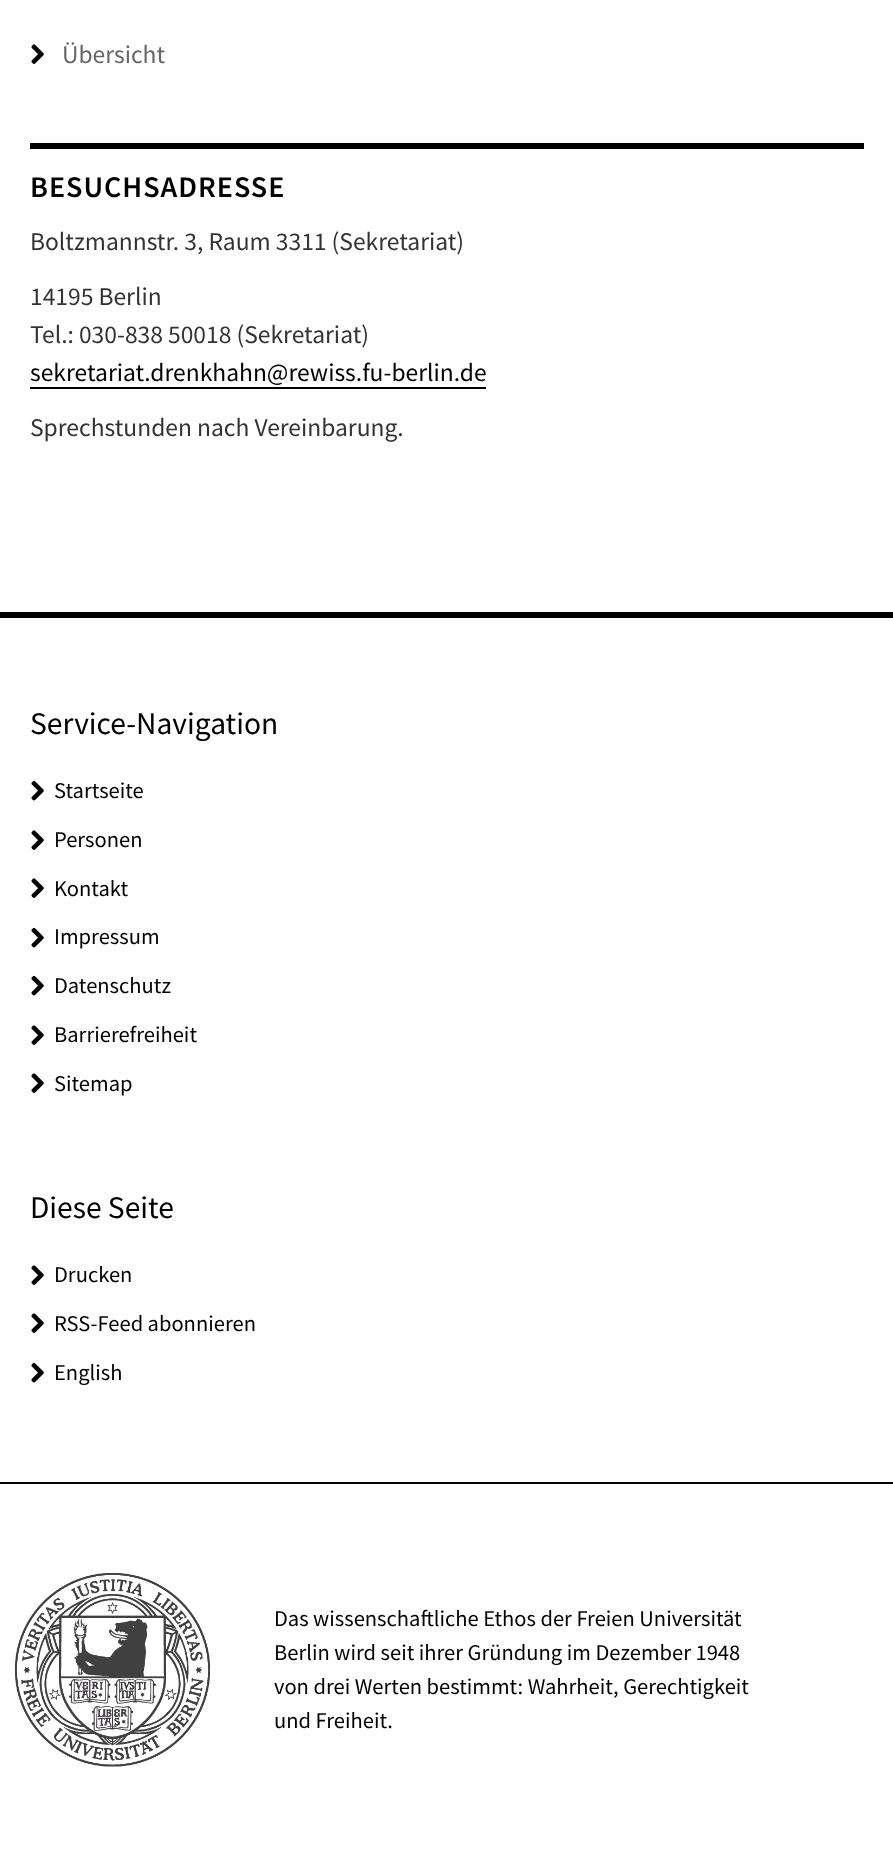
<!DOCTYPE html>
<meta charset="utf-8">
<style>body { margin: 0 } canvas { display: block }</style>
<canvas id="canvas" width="893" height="1857"></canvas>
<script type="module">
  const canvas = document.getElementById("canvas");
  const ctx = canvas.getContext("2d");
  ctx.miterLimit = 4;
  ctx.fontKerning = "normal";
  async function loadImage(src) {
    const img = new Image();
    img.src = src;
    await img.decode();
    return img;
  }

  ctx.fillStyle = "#ffffff";
  ctx.fillRect(0, 0, 893, 1857);
  ctx.drawImage(await loadImage("img1.png"), 31, 44, 13, 20);
  ctx.font = "25.5px Source Sans Pro";
  ctx.fillStyle = "#666666";
  ctx.fillText("Übersicht", 62, 63);
  ctx.fillStyle = "#000000";
  ctx.fillRect(30, 143, 834, 6);
  ctx.letterSpacing = "1px";
  ctx.font = "600 30px Source Sans Pro";
  ctx.fillText("BESUCHSADRESSE", 30, 197);
  ctx.letterSpacing = "0px";
  ctx.font = "25.5px Source Sans Pro";
  ctx.fillStyle = "#333333";
  ctx.fillText("Boltzmannstr. 3, Raum 3311 (Sekretariat)", 30, 250);
  ctx.fillText("14195 Berlin", 30, 305);
  ctx.fillText("Tel.: 030-838 50018 (Sekretariat)", 30, 343);
  ctx.fillStyle = "#000000";
  ctx.fillText("sekretariat.drenkhahn@rewiss.fu-berlin.de", 30, 381);
  ctx.fillRect(30, 387, 456, 2);
  ctx.fillStyle = "#333333";
  ctx.fillText("Sprechstunden nach Vereinbarung.", 30, 436);
  ctx.fillStyle = "#000000";
  ctx.fillRect(0, 612, 893, 6);
  ctx.fillRect(0, 1482, 893, 2);
  ctx.font = "31.5px Source Sans Pro";
  ctx.fillText("Service-Navigation", 30, 734);
  ctx.drawImage(await loadImage("img2.png"), 31, 780, 13, 21);
  ctx.font = "22.5px Source Sans Pro";
  ctx.fillText("Startseite", 54, 798);
  ctx.drawImage(await loadImage("img1.png"), 31, 830, 13, 20);
  ctx.fillText("Personen", 54, 847);
  ctx.drawImage(await loadImage("img1.png"), 31, 878, 13, 20);
  ctx.fillText("Kontakt", 54, 896);
  ctx.drawImage(await loadImage("img2.png"), 31, 927, 13, 21);
  ctx.fillText("Impressum", 54, 944);
  ctx.drawImage(await loadImage("img2.png"), 31, 975, 13, 21);
  ctx.fillText("Datenschutz", 54, 993);
  ctx.drawImage(await loadImage("img1.png"), 31, 1025, 13, 20);
  ctx.fillText("Barrierefreiheit", 54, 1042);
  ctx.drawImage(await loadImage("img1.png"), 31, 1073, 13, 20);
  ctx.fillText("Sitemap", 54, 1091);
  ctx.font = "31.5px Source Sans Pro";
  ctx.fillText("Diese Seite", 30, 1218);
  ctx.drawImage(await loadImage("img1.png"), 31, 1265, 13, 20);
  ctx.font = "22.5px Source Sans Pro";
  ctx.fillText("Drucken", 54, 1282);
  ctx.drawImage(await loadImage("img1.png"), 31, 1313, 13, 20);
  ctx.fillText("RSS-Feed abonnieren", 54, 1331);
  ctx.drawImage(await loadImage("img2.png"), 31, 1362, 13, 21);
  ctx.fillText("English", 54, 1380);
  ctx.drawImage(await loadImage("img3.png"), 15, 1573, 195, 194);
  ctx.fillText("Das wissenschaftliche Ethos der Freien Universität", 274, 1626);
  ctx.fillText("Berlin wird seit ihrer Gründung im Dezember 1948", 274, 1660);
  ctx.fillText("von drei Werten bestimmt: Wahrheit, Gerechtigkeit", 274, 1694);
  ctx.fillText("und Freiheit.", 274, 1728);
</script>
